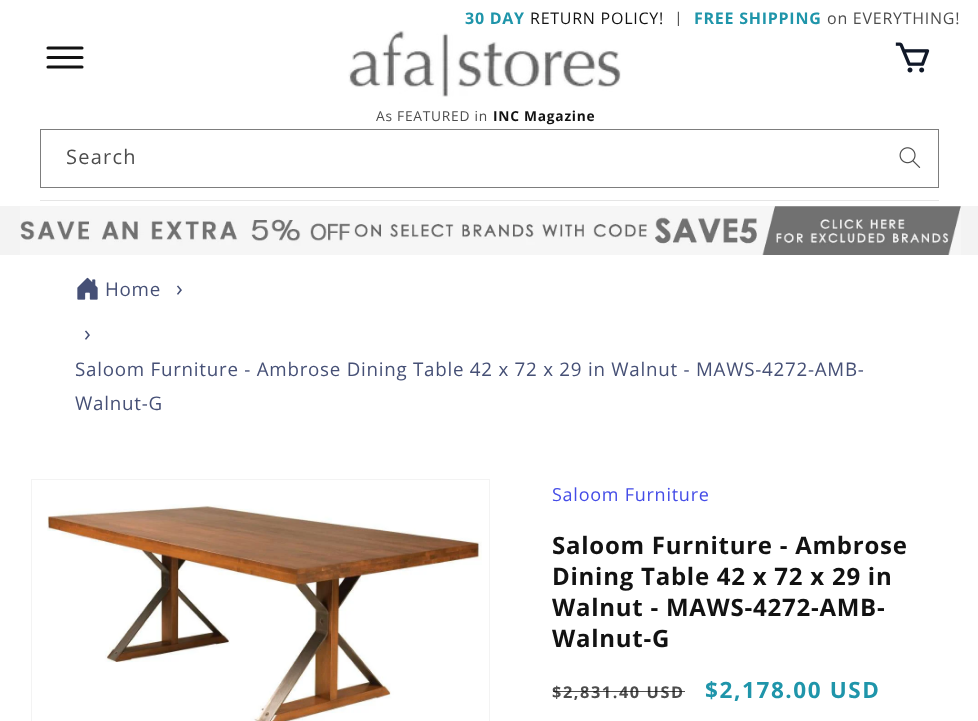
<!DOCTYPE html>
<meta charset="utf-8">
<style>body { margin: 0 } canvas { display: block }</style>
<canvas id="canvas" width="978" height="721"></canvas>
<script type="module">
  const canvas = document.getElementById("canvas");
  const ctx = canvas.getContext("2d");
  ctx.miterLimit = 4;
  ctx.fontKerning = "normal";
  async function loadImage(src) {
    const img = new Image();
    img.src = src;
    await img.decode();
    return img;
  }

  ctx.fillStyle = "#ffffff";
  ctx.fillRect(0, 0, 978, 721);
  ctx.letterSpacing = "0.75px";
  ctx.font = "bold 16px Open Sans";
  ctx.fillStyle = "#1f95aa";
  ctx.fillText("30 DAY", 465, 24);
  ctx.font = "16px Open Sans";
  ctx.fillStyle = "#121212";
  ctx.fillText("RETURN POLICY!", 530, 24);
  ctx.fillStyle = "#4d4d4d";
  ctx.fillText("|", 674, 24);
  ctx.font = "bold 16px Open Sans";
  ctx.fillStyle = "#1f95aa";
  ctx.fillText("FREE SHIPPING", 694, 24);
  ctx.font = "16px Open Sans";
  ctx.fillStyle = "#4d4d4d";
  ctx.fillText("on EVERYTHING!", 827, 24);
  ctx.fillStyle = "#ffffff";
  ctx.fillRect(677, 26, 2, 2);
  ctx.fillStyle = "#e5e5e5";
  ctx.fillRect(40, 200, 899, 1);
  ctx.beginPath();
  ctx.moveTo(48, 48);
  ctx.lineTo(82, 48);
  ctx.moveTo(48, 57.5);
  ctx.lineTo(82, 57.5);
  ctx.moveTo(48, 67);
  ctx.lineTo(82, 67);
  ctx.strokeStyle = "#121212";
  ctx.lineWidth = 3.1;
  ctx.lineCap = "round";
  ctx.stroke();
  ctx.drawImage(await loadImage("img1.png"), 895, 42, 35, 31);
  ctx.drawImage(await loadImage("img2.png"), 348, 30, 273, 67);
  ctx.font = "13.75px Open Sans";
  ctx.fillStyle = "#4d4d4d";
  ctx.fillText("As FEATURED in", 376, 121);
  ctx.font = "bold 13.75px Open Sans";
  ctx.fillStyle = "#121212";
  ctx.fillText("INC Magazine", 493, 121);
  ctx.drawImage(await loadImage("img3.png"), 899, 147, 22, 21);
  ctx.strokeStyle = "#7d7d7d";
  ctx.lineWidth = 1;
  ctx.strokeRect(40.5, 129.5, 898, 58);
  ctx.letterSpacing = "1.25px";
  ctx.font = "20px Open Sans";
  ctx.fillStyle = "#4d4d4d";
  ctx.fillText("Search", 66, 164);
  ctx.fillStyle = "#f3f3f3";
  ctx.fillRect(0, 206, 978, 49);
  ctx.drawImage(await loadImage("img4.png"), 20, 206, 941, 49);
  ctx.drawImage(await loadImage("img5.png"), 77, 277, 21, 23);
  ctx.letterSpacing = "0.75px";
  ctx.font = "18.75px Open Sans";
  ctx.fillStyle = "#465076";
  ctx.fillText("Home", 105, 296);
  ctx.font = "22.5px Open Sans";
  ctx.fillText("›", 176, 296);
  ctx.fillText("›", 84, 341);
  ctx.font = "18.75px Open Sans";
  ctx.fillText("Saloom Furniture - Ambrose Dining Table 42 x 72 x 29 in Walnut - MAWS-4272-AMB-", 75, 376);
  ctx.fillText("Walnut-G", 75, 410);
  ctx.strokeStyle = "#f3f3f3";
  ctx.strokeRect(31.5, 479.5, 458, 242);
  ctx.drawImage(await loadImage("img6.png"), 47, 504, 435, 217);
  ctx.font = "18px Open Sans";
  ctx.fillStyle = "#444ce7";
  ctx.fillText("Saloom Furniture", 552, 501);
  ctx.font = "bold 24px Open Sans";
  ctx.fillStyle = "#121212";
  ctx.fillText("Saloom Furniture - Ambrose", 552, 554);
  ctx.fillText("Dining Table 42 x 72 x 29 in", 552, 585);
  ctx.fillText("Walnut - MAWS-4272-AMB-", 552, 616);
  ctx.fillText("Walnut-G", 552, 647);
  ctx.letterSpacing = "1.6px";
  ctx.font = "bold 16.25px Open Sans";
  ctx.fillStyle = "#4d4d4d";
  ctx.fillText("$2,831.40 USD", 552, 698);
  ctx.fillStyle = "rgba(18, 18, 18, 0.75)";
  ctx.fillRect(553, 691, 132, 1);
  ctx.font = "bold 22.5px Open Sans";
  ctx.fillStyle = "#1f95aa";
  ctx.fillText("$2,178.00 USD", 705, 698);
</script>
